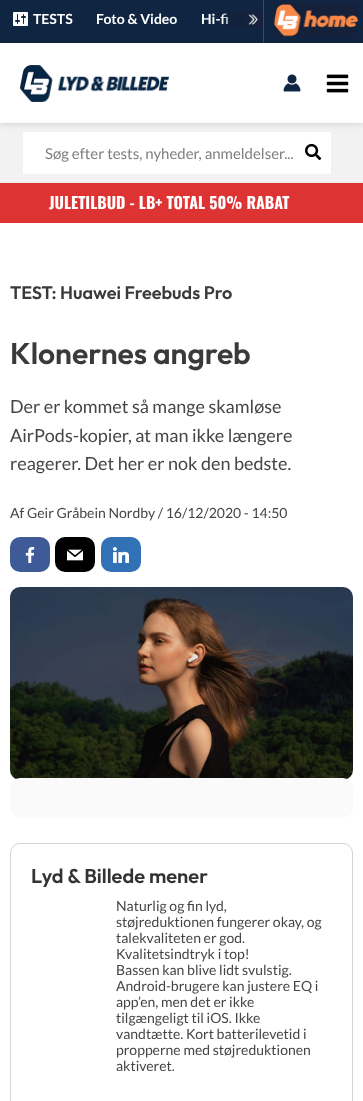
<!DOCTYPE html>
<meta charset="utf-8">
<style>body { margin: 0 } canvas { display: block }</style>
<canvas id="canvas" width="363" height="1101"></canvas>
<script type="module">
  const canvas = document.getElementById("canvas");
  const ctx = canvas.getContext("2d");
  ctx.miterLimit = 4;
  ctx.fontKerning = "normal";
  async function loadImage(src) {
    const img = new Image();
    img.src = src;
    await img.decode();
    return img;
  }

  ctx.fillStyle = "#ffffff";
  ctx.fillRect(0, 0, 363, 1101);
  ctx.fillStyle = "#102542";
  ctx.fillRect(0, 0, 263, 43);
  ctx.drawImage(await loadImage("img1.png"), 13, 12, 15, 14);
  ctx.font = "bold 14px Lato";
  ctx.fillStyle = "#ffffff";
  ctx.fillText("TESTS", 33, 24);
  ctx.fillText("Foto & Video", 96, 24);
  ctx.fillText("Hi-fi", 201, 24);
  ctx.drawImage(await loadImage("img2.png"), 223, 11, 40, 17);
  ctx.fillStyle = "#102542";
  ctx.fillRect(264, 0, 99, 43);
  ctx.fillStyle = "#3f4a58";
  ctx.fillRect(263, 0, 1, 45);
  ctx.drawImage(await loadImage("img3.png"), 274, 3, 84, 34);
  ctx.fillStyle = "#f2f2f2";
  ctx.fillRect(0, 123, 363, 59);
  ctx.fillStyle = "#ffffff";
  ctx.fillRect(23, 132, 308, 42);
  ctx.fillStyle = "rgba(19, 19, 19, 0.15)";
  ctx.filter = "blur(3px)";
  ctx.beginPath();
  ctx.rect(0, 44, 363, 80);
  ctx.fill();
  ctx.filter = "none";
  ctx.fillStyle = "#ffffff";
  ctx.fillRect(0, 43, 363, 80);
  ctx.drawImage(await loadImage("img4.png"), 20, 65, 149, 37);
  ctx.drawImage(await loadImage("img5.png"), 283, 74, 18, 18);
  ctx.drawImage(await loadImage("img6.png"), 326, 74, 23, 19);
  ctx.fillStyle = "#eaeaea";
  ctx.fillRect(0, 182, 363, 1);
  ctx.font = "15px Lato";
  ctx.fillStyle = "#7e7e7e";
  ctx.fillText("Søg efter tests, nyheder, anmeldelser...", 45, 159);
  ctx.drawImage(await loadImage("img7.png"), 305, 143, 17, 17);
  ctx.fillStyle = "#dd3333";
  ctx.fillRect(0, 183, 363, 40);
  ctx.font = "bold 16px Oswald";
  ctx.fillStyle = "#ffffff";
  ctx.fillText("JULETILBUD - LB+ TOTAL 50% RABAT", 49, 209);
  ctx.font = "100 18px Outfit";
  ctx.fillStyle = "#3a3a3a";
  ctx.fillText("TEST: Huawei Freebuds Pro", 10, 299);
  ctx.font = "100 30px Outfit";
  ctx.fillText("Klonernes angreb", 10, 364);
  ctx.font = "18px Lato";
  ctx.fillStyle = "#454545";
  ctx.fillText("Der er kommet så mange skamløse", 10, 413);
  ctx.fillText("AirPods-kopier, at man ikke længere", 10, 442);
  ctx.fillText("reagerer. Det her er nok den bedste.", 10, 470);
  ctx.font = "14px Lato";
  ctx.fillText("Af Geir Gråbein Nordby / 16/12/2020 - 14:50", 10, 518);
  ctx.fillStyle = "#3e5b98";
  ctx.beginPath();
  ctx.roundRect(10, 537, 40, 35, 10);
  ctx.fill();
  ctx.drawImage(await loadImage("img8.png"), 25, 547, 10, 16);
  ctx.fillStyle = "#000000";
  ctx.beginPath();
  ctx.roundRect(55, 537, 40, 35, 10);
  ctx.fill();
  ctx.drawImage(await loadImage("img9.png"), 67, 549, 16, 12);
  ctx.fillStyle = "#3371b7";
  ctx.beginPath();
  ctx.roundRect(101, 537, 40, 35, 10);
  ctx.fill();
  ctx.drawImage(await loadImage("img10.png"), 113, 547, 16, 16);
  ctx.drawImage(await loadImage("img11.png"), 10, 587, 343, 192);
  ctx.fillStyle = "#fafafa";
  ctx.beginPath();
  ctx.roundRect(10, 778, 343, 40, 10);
  ctx.fill();
  ctx.beginPath();
  ctx.roundRect(10.5, 843.5, 342, 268, 9.5);
  ctx.strokeStyle = "#d3d3d3";
  ctx.stroke();
  ctx.font = "100 20px Outfit";
  ctx.fillStyle = "#333333";
  ctx.fillText("Lyd & Billede mener", 31, 883);
  ctx.font = "14px Lato";
  ctx.fillStyle = "#454545";
  ctx.fillText("Naturlig og fin lyd,", 116, 911);
  ctx.fillText("støjreduktionen fungerer okay, og", 116, 927);
  ctx.fillText("talekvaliteten er god.", 116, 943);
  ctx.fillText("Kvalitetsindtryk i top!", 116, 959);
  ctx.fillText("Bassen kan blive lidt svulstig.", 116, 975);
  ctx.fillText("Android-brugere kan justere EQ i", 116, 991);
  ctx.fillText("app’en, men det er ikke", 116, 1007);
  ctx.fillText("tilgængeligt til iOS. Ikke", 116, 1023);
  ctx.fillText("vandtætte. Kort batterilevetid i", 116, 1039);
  ctx.fillText("propperne med støjreduktionen", 116, 1055);
  ctx.fillText("aktiveret.", 116, 1071);
</script>
